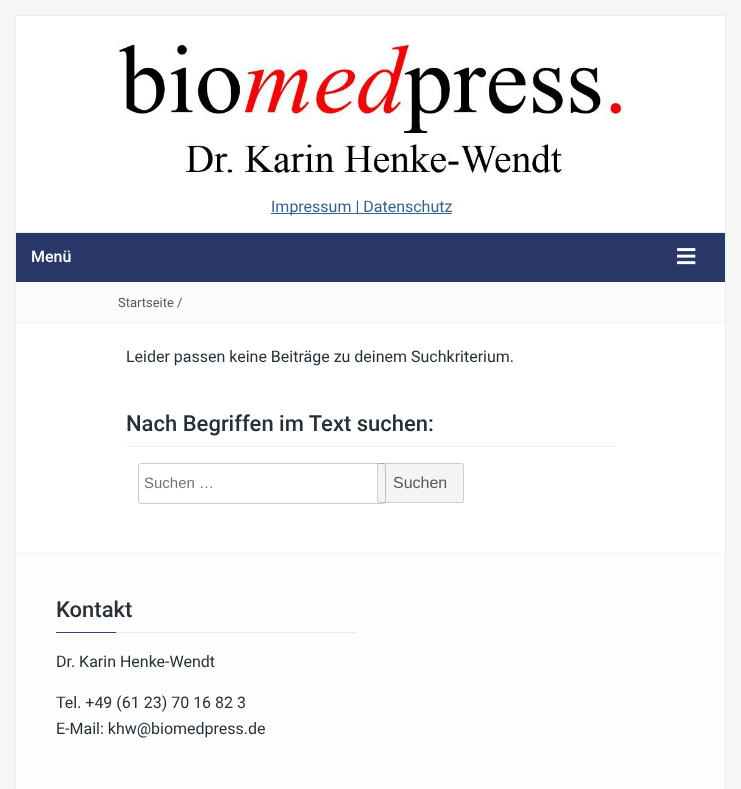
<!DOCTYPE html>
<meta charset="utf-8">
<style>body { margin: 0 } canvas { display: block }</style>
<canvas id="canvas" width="741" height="789"></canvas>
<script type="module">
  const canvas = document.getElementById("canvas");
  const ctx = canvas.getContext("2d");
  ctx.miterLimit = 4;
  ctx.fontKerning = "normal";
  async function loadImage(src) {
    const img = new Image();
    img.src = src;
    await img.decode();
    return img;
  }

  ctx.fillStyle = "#f6f6f6";
  ctx.fillRect(0, 0, 741, 789);
  ctx.fillStyle = "#ffffff";
  ctx.fillRect(16, 16, 709, 536);
  ctx.strokeStyle = "#ededed";
  ctx.strokeRect(15.5, 15.5, 710, 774);
  ctx.drawImage(await loadImage("img1.png"), 116, 41, 507, 132);
  ctx.fillStyle = "#336290";
  ctx.fillRect(271, 213, 181, 1);
  ctx.font = "16px Roboto";
  ctx.fillText("Impressum | Datenschutz", 271, 212);
  ctx.fillStyle = "#ededed";
  ctx.fillRect(16, 232, 709, 1);
  ctx.fillStyle = "#293868";
  ctx.fillRect(16, 233, 709, 49);
  ctx.font = "500 16px Roboto";
  ctx.fillStyle = "#ffffff";
  ctx.fillText("Menü", 31, 262);
  ctx.drawImage(await loadImage("img2.png"), 677, 248, 19, 17);
  ctx.fillStyle = "#fcfcfc";
  ctx.fillRect(16, 284, 709, 38);
  ctx.fillStyle = "#f4f4f4";
  ctx.fillRect(16, 283, 709, 1);
  ctx.fillRect(16, 322, 709, 1);
  ctx.font = "13px Roboto";
  ctx.fillStyle = "#525960";
  ctx.fillText("Startseite", 118, 307);
  ctx.fillText("/", 177, 307);
  ctx.font = "16px Roboto";
  ctx.fillStyle = "#273039";
  ctx.fillText("Leider passen keine Beiträge zu deinem Suchkriterium.", 126, 362);
  ctx.fillStyle = "#ededed";
  ctx.fillRect(126, 446, 490, 1);
  ctx.font = "500 22px Roboto";
  ctx.fillStyle = "#273039";
  ctx.fillText("Nach Begriffen im Text suchen:", 126, 431);
  ctx.beginPath();
  ctx.roundRect(138.5, 463.5, 247, 40, 2.5);
  ctx.strokeStyle = "#c9cbce";
  ctx.stroke();
  ctx.font = "15px Liberation Sans";
  ctx.fillStyle = "#757575";
  ctx.fillText("Suchen …", 144, 488);
  ctx.fillStyle = "rgba(39, 48, 57, 0.05)";
  ctx.fillRect(377, 463, 87, 40);
  ctx.beginPath();
  ctx.roundRect(377.5, 463.5, 86, 39, 2.5);
  ctx.strokeStyle = "rgba(39, 48, 57, 0.2)";
  ctx.stroke();
  ctx.font = "16px Liberation Sans";
  ctx.fillStyle = "#525960";
  ctx.fillText("Suchen", 393, 488);
  ctx.fillStyle = "#fdfdfd";
  ctx.fillRect(16, 553, 709, 236);
  ctx.fillStyle = "#ebebeb";
  ctx.fillRect(116, 632, 240, 1);
  ctx.font = "500 22px Roboto";
  ctx.fillStyle = "#273039";
  ctx.fillText("Kontakt", 56, 617);
  ctx.fillStyle = "#33416f";
  ctx.fillRect(56, 632, 60, 1);
  ctx.font = "16px Roboto";
  ctx.fillStyle = "#273039";
  ctx.fillText("Dr. Karin Henke-Wendt", 56, 667);
  ctx.fillText("Tel. +49 (61 23) 70 16 82 3", 56, 708);
  ctx.fillText("E-Mail: khw@biomedpress.de", 56, 734);
</script>
